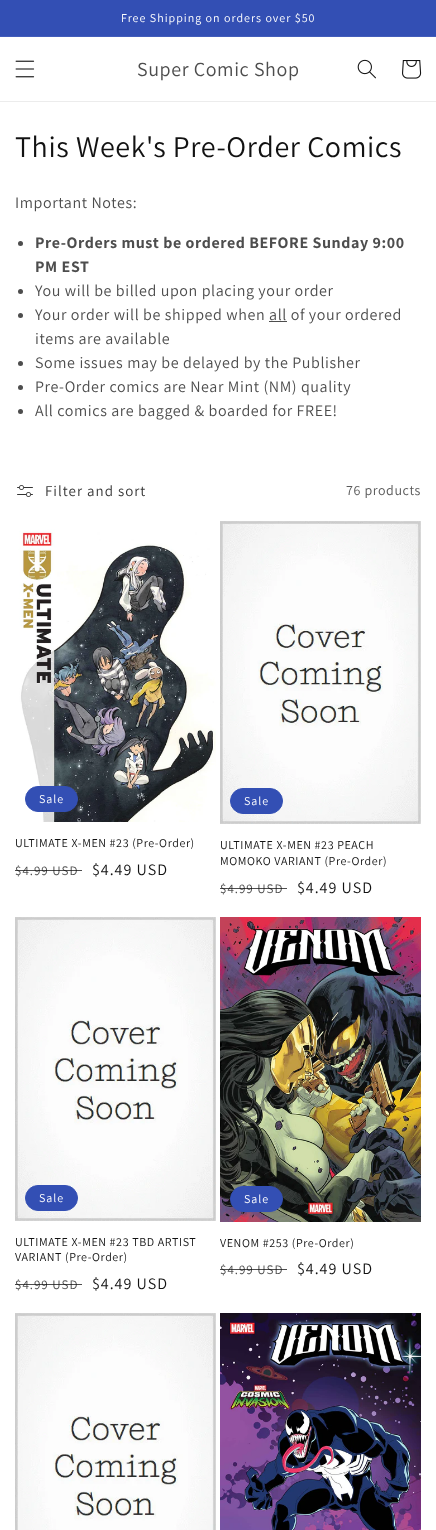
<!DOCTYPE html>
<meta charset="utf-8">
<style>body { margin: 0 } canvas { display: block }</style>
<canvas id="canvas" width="436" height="1530"></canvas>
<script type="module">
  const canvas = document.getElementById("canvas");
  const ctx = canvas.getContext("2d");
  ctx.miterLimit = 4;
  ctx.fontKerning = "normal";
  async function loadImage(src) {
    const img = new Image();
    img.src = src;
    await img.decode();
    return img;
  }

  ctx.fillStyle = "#ffffff";
  ctx.fillRect(0, 0, 436, 1530);
  ctx.fillStyle = "#334fb4";
  ctx.fillRect(0, 0, 436, 36);
  ctx.fillStyle = "#435dba";
  ctx.fillRect(0, 36, 436, 1);
  ctx.letterSpacing = "1px";
  ctx.font = "12px Assistant";
  ctx.fillStyle = "#ffffff";
  ctx.fillText("Free Shipping on orders over $50", 121, 22);
  ctx.fillStyle = "#ececec";
  ctx.fillRect(0, 101, 436, 1);
  ctx.drawImage(await loadImage("img1.png"), 15, 60, 20, 18);
  ctx.letterSpacing = "0.6px";
  ctx.font = "20px Assistant";
  ctx.fillStyle = "#4d4d4d";
  ctx.fillText("Super Comic Shop", 137, 76);
  ctx.drawImage(await loadImage("img2.png"), 357, 59, 19, 20);
  ctx.drawImage(await loadImage("img3.png"), 402, 60, 20, 19);
  ctx.font = "30px Assistant";
  ctx.fillStyle = "#121212";
  ctx.fillText("This Week's Pre-Order Comics", 15, 157);
  ctx.font = "16px Assistant";
  ctx.fillStyle = "#4d4d4d";
  ctx.fillText("Important Notes:", 15, 208);
  ctx.beginPath();
  ctx.arc(20.5, 243.5, 2.5, 0, Math.PI * 2);
  ctx.fill();
  ctx.font = "bold 16px Assistant";
  ctx.fillText("Pre-Orders must be ordered BEFORE Sunday 9:00", 35, 248);
  ctx.fillText("PM EST", 35, 272);
  ctx.beginPath();
  ctx.arc(20.5, 291.5, 2.5, 0, Math.PI * 2);
  ctx.fill();
  ctx.font = "16px Assistant";
  ctx.fillText("You will be billed upon placing your order", 35, 296);
  ctx.beginPath();
  ctx.arc(20.5, 315.5, 2.5, 0, Math.PI * 2);
  ctx.fill();
  ctx.fillText("Your order will be shipped when all of your ordered", 35, 320);
  ctx.fillRect(269, 321, 18, 1);
  ctx.fillText("items are available", 35, 344);
  ctx.beginPath();
  ctx.arc(20.5, 363.5, 2.5, 0, Math.PI * 2);
  ctx.fill();
  ctx.fillText("Some issues may be delayed by the Publisher", 35, 368);
  ctx.beginPath();
  ctx.arc(20.5, 387.5, 2.5, 0, Math.PI * 2);
  ctx.fill();
  ctx.fillText("Pre-Order comics are Near Mint (NM) quality", 35, 392);
  ctx.beginPath();
  ctx.arc(20.5, 411.5, 2.5, 0, Math.PI * 2);
  ctx.fill();
  ctx.fillText("All comics are bagged & boarded for FREE!", 35, 416);
  ctx.drawImage(await loadImage("img4.png"), 17, 485, 16, 12);
  ctx.letterSpacing = "1px";
  ctx.font = "15px Assistant";
  ctx.fillStyle = "#363636";
  ctx.fillText("Filter and sort", 45, 496);
  ctx.letterSpacing = "0.6px";
  ctx.font = "14px Assistant";
  ctx.fillStyle = "#595959";
  ctx.fillText("76 products", 346, 495);
  ctx.drawImage(await loadImage("img5.png"), 15, 521, 201, 301);
  ctx.fillStyle = "#334fb4";
  ctx.beginPath();
  ctx.roundRect(25.5, 786.5, 52, 25, 12.5);
  ctx.fill();
  ctx.strokeStyle = "#334fb4";
  ctx.stroke();
  ctx.letterSpacing = "1px";
  ctx.font = "12px Assistant";
  ctx.fillStyle = "#ffffff";
  ctx.fillText("Sale", 39, 803);
  ctx.letterSpacing = "0.6px";
  ctx.fillStyle = "#121212";
  ctx.fillText("ULTIMATE X-MEN #23 (Pre-Order)", 15, 847);
  ctx.letterSpacing = "1px";
  ctx.font = "13px Assistant";
  ctx.fillStyle = "#4d4d4d";
  ctx.fillText("$4.99 USD", 15, 875);
  ctx.fillStyle = "rgba(18, 18, 18, 0.75)";
  ctx.fillRect(15, 870, 67, 1);
  ctx.font = "16px Assistant";
  ctx.fillStyle = "#121212";
  ctx.fillText("$4.49 USD", 92, 875);
  ctx.drawImage(await loadImage("img6.png"), 220, 521, 201, 303);
  ctx.fillStyle = "#334fb4";
  ctx.beginPath();
  ctx.roundRect(230.5, 788.5, 52, 25, 12.5);
  ctx.fill();
  ctx.stroke();
  ctx.font = "12px Assistant";
  ctx.fillStyle = "#ffffff";
  ctx.fillText("Sale", 244, 805);
  ctx.letterSpacing = "0.6px";
  ctx.fillStyle = "#121212";
  ctx.fillText("ULTIMATE X-MEN #23 PEACH", 220, 849);
  ctx.fillText("MOMOKO VARIANT (Pre-Order)", 220, 865);
  ctx.letterSpacing = "1px";
  ctx.font = "13px Assistant";
  ctx.fillStyle = "#4d4d4d";
  ctx.fillText("$4.99 USD", 220, 893);
  ctx.fillStyle = "rgba(18, 18, 18, 0.75)";
  ctx.fillRect(220, 888, 67, 1);
  ctx.font = "16px Assistant";
  ctx.fillStyle = "#121212";
  ctx.fillText("$4.49 USD", 297, 893);
  ctx.drawImage(await loadImage("img7.png"), 15, 917, 201, 304);
  ctx.fillStyle = "#334fb4";
  ctx.beginPath();
  ctx.roundRect(25.5, 1185.5, 52, 25, 12.5);
  ctx.fill();
  ctx.stroke();
  ctx.font = "12px Assistant";
  ctx.fillStyle = "#ffffff";
  ctx.fillText("Sale", 39, 1202);
  ctx.letterSpacing = "0.6px";
  ctx.fillStyle = "#121212";
  ctx.fillText("ULTIMATE X-MEN #23 TBD ARTIST", 15, 1246);
  ctx.fillText("VARIANT (Pre-Order)", 15, 1261);
  ctx.letterSpacing = "1px";
  ctx.font = "13px Assistant";
  ctx.fillStyle = "#4d4d4d";
  ctx.fillText("$4.99 USD", 15, 1289);
  ctx.fillStyle = "rgba(18, 18, 18, 0.75)";
  ctx.fillRect(15, 1284, 67, 1);
  ctx.font = "16px Assistant";
  ctx.fillStyle = "#121212";
  ctx.fillText("$4.49 USD", 92, 1289);
  ctx.drawImage(await loadImage("img8.png"), 220, 917, 201, 305);
  ctx.fillStyle = "#334fb4";
  ctx.beginPath();
  ctx.roundRect(230.5, 1186.5, 52, 25, 12.5);
  ctx.fill();
  ctx.stroke();
  ctx.font = "12px Assistant";
  ctx.fillStyle = "#ffffff";
  ctx.fillText("Sale", 244, 1203);
  ctx.letterSpacing = "0.6px";
  ctx.fillStyle = "#121212";
  ctx.fillText("VENOM #253 (Pre-Order)", 220, 1247);
  ctx.letterSpacing = "1px";
  ctx.font = "13px Assistant";
  ctx.fillStyle = "#4d4d4d";
  ctx.fillText("$4.99 USD", 220, 1274);
  ctx.fillStyle = "rgba(18, 18, 18, 0.75)";
  ctx.fillRect(220, 1269, 67, 1);
  ctx.font = "16px Assistant";
  ctx.fillStyle = "#121212";
  ctx.fillText("$4.49 USD", 297, 1274);
  ctx.drawImage(await loadImage("img9.png"), 15, 1313, 201, 217);
  ctx.drawImage(await loadImage("img10.png"), 220, 1313, 201, 217);
</script>
